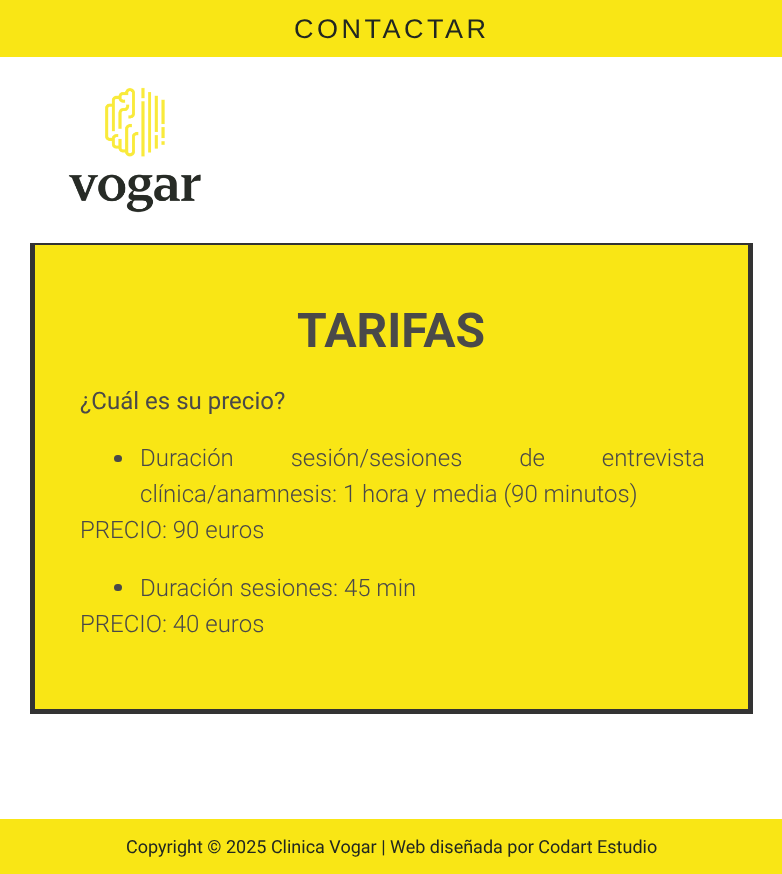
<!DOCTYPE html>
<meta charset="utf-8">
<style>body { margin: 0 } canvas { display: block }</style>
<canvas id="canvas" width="782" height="874"></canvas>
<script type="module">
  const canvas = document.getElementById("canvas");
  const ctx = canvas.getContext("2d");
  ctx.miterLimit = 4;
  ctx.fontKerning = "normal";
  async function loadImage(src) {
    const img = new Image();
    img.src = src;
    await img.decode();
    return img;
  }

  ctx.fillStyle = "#ffffff";
  ctx.fillRect(0, 0, 782, 874);
  ctx.fillStyle = "#f9e615";
  ctx.beginPath();
  ctx.rect(32.5, 242.5, 718, 469);
  ctx.fill();
  ctx.strokeStyle = "#333333";
  ctx.lineWidth = 5;
  ctx.stroke();
  ctx.fillStyle = "#ffffff";
  ctx.fillRect(30, 240, 723, 3);
  ctx.fillStyle = "#f9e615";
  ctx.fillRect(0, 0, 782, 57);
  ctx.letterSpacing = "3.5px";
  ctx.font = "27px Liberation Sans";
  ctx.fillStyle = "#212721";
  ctx.fillText("CONTACTAR", 294, 38);
  ctx.drawImage(await loadImage("img1.png"), 68, 87, 133, 126);
  ctx.letterSpacing = "0px";
  ctx.font = "bold 48px Roboto";
  ctx.fillStyle = "#4a4949";
  ctx.fillText("TARIFAS", 297, 347);
  ctx.font = "24px Roboto";
  ctx.fillText("¿Cuál es su precio?", 80, 409);
  ctx.beginPath();
  ctx.roundRect(114, 455, 8, 7, 3.5);
  ctx.fill();
  ctx.wordSpacing = "51px";
  ctx.font = "300 24px Roboto";
  ctx.fillText("Duración sesión/sesiones de entrevista", 140, 466);
  ctx.wordSpacing = "0px";
  ctx.fillText("clínica/anamnesis: 1 hora y media (90 minutos)", 140, 502);
  ctx.fillText("PRECIO: 90 euros", 80, 538);
  ctx.beginPath();
  ctx.roundRect(114, 584, 8, 7, 3.5);
  ctx.fill();
  ctx.fillText("Duración sesiones: 45 min", 140, 596);
  ctx.fillText("PRECIO: 40 euros", 80, 632);
  ctx.fillStyle = "#f9e615";
  ctx.fillRect(0, 819, 782, 55);
  ctx.font = "18px Roboto";
  ctx.fillStyle = "#212721";
  ctx.fillText("Copyright © 2025 Clinica Vogar | Web diseñada por Codart Estudio", 126, 853);
</script>
